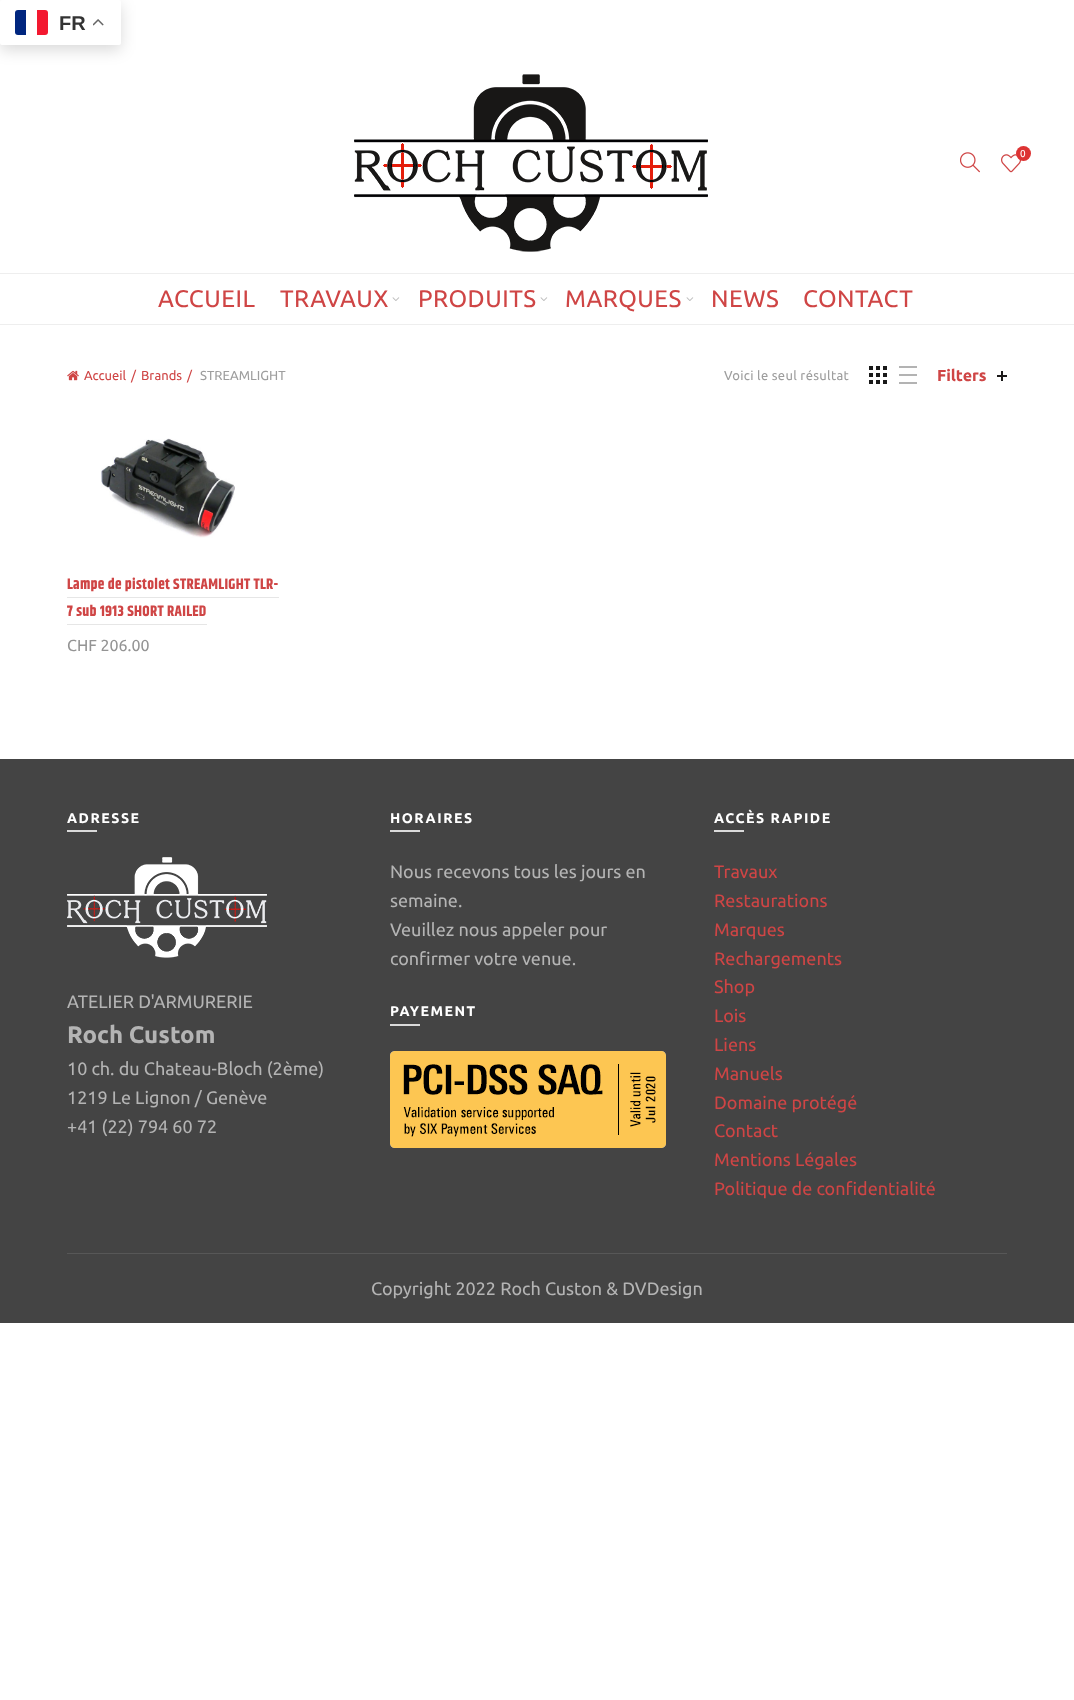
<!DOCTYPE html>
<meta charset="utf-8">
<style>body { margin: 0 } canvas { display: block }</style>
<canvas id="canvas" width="1074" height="1700"></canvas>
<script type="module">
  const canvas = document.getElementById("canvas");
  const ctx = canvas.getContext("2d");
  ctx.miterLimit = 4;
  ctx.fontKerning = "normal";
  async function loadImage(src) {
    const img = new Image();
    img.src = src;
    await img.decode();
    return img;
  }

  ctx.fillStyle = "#ffffff";
  ctx.fillRect(0, 0, 1074, 1700);
  ctx.fillStyle = "rgba(0, 0, 0, 0.15)";
  ctx.filter = "blur(7.5px)";
  ctx.beginPath();
  ctx.roundRect(0, 5, 121, 45, 2);
  ctx.fill();
  ctx.filter = "none";
  ctx.fillStyle = "#ffffff";
  ctx.beginPath();
  ctx.roundRect(0, 0, 121, 45, 2);
  ctx.fill();
  ctx.fillStyle = "#00267f";
  ctx.beginPath();
  ctx.roundRect(15, 10, 11, 25, [3, 0, 0, 3]);
  ctx.fill();
  ctx.fillStyle = "#f31830";
  ctx.beginPath();
  ctx.roundRect(37, 10, 11, 25, [0, 3, 3, 0]);
  ctx.fill();
  ctx.font = "bold 20px Liberation Sans";
  ctx.fillStyle = "#333333";
  ctx.fillText("FR", 59, 30);
  ctx.drawImage(await loadImage("img1.png"), 93, 19, 11, 7);
  ctx.drawImage(await loadImage("img2.png"), 354, 74, 354, 178);
  ctx.drawImage(await loadImage("img3.png"), 960, 152, 20, 21);
  ctx.drawImage(await loadImage("img4.png"), 1001, 154, 20, 19);
  ctx.fillStyle = "#dd3333";
  ctx.beginPath();
  ctx.arc(1023.5, 153.5, 7.5, 0, Math.PI * 2);
  ctx.fill();
  ctx.font = "10px Ubuntu";
  ctx.fillStyle = "#ffffff";
  ctx.fillText("0", 1020, 157);
  ctx.fillStyle = "#eeeeee";
  ctx.fillRect(0, 273, 1074, 1);
  ctx.fillRect(0, 324, 1074, 1);
  ctx.letterSpacing = "0.5px";
  ctx.font = "24px Ubuntu";
  ctx.fillStyle = "#cf4545";
  ctx.fillText("ACCUEIL", 158, 307);
  ctx.fillText("TRAVAUX", 280, 307);
  ctx.drawImage(await loadImage("img5.png"), 392, 297, 8, 4);
  ctx.fillText("PRODUITS", 418, 307);
  ctx.drawImage(await loadImage("img5.png"), 540, 297, 8, 4);
  ctx.fillText("MARQUES", 565, 307);
  ctx.drawImage(await loadImage("img5.png"), 686, 297, 8, 4);
  ctx.fillText("NEWS", 711, 307);
  ctx.fillText("CONTACT", 803, 307);
  ctx.drawImage(await loadImage("img6.png"), 67, 370, 12, 11);
  ctx.letterSpacing = "0px";
  ctx.font = "13px Ubuntu";
  ctx.fillText("Accueil", 84, 380);
  ctx.fillText("/", 131, 380);
  ctx.fillText("Brands", 141, 380);
  ctx.fillText("/", 187, 380);
  ctx.fillStyle = "#9e9e9e";
  ctx.fillText("STREAMLIGHT", 200, 380);
  ctx.letterSpacing = "0.3px";
  ctx.fillText("Voici le seul résultat", 724, 380);
  ctx.drawImage(await loadImage("img7.png"), 869, 366, 18, 18);
  ctx.fillStyle = "#b3b3b3";
  ctx.fillRect(899, 366, 18, 2);
  ctx.fillRect(899, 382, 18, 2);
  ctx.fillRect(899, 374, 18, 2);
  ctx.letterSpacing = "0px";
  ctx.font = "bold 16px Ubuntu";
  ctx.fillStyle = "#cf4545";
  ctx.fillText("Filters", 937, 381);
  ctx.fillStyle = "#1b1919";
  ctx.fillRect(1001, 371, 2, 10);
  ctx.fillRect(997, 375, 10, 2);
  ctx.drawImage(await loadImage("img8.png"), 101, 438, 134, 100);
  ctx.letterSpacing = "0.3px";
  ctx.font = "bold 15px Khand";
  ctx.fillStyle = "#cf4545";
  ctx.fillText("Lampe de pistolet STREAMLIGHT TLR-", 67, 589);
  ctx.fillStyle = "#e6e6e6";
  ctx.fillRect(67, 597, 212, 1);
  ctx.fillStyle = "#cf4545";
  ctx.fillText("7 sub 1913 SHORT RAILED", 67, 616);
  ctx.fillStyle = "#e6e6e6";
  ctx.fillRect(67, 624, 140, 1);
  ctx.letterSpacing = "0px";
  ctx.font = "16px Ubuntu";
  ctx.fillStyle = "#949494";
  ctx.fillText("CHF 206.00", 67, 651);
  ctx.fillStyle = "#444444";
  ctx.fillRect(0, 759, 1074, 564);
  ctx.letterSpacing = "1.5px";
  ctx.font = "bold 14px Ubuntu";
  ctx.fillStyle = "#ffffff";
  ctx.fillText("ADRESSE", 67, 823);
  ctx.fillStyle = "#dadada";
  ctx.fillRect(67, 830, 30, 2);
  ctx.drawImage(await loadImage("img9.png"), 67, 857, 200, 101);
  ctx.letterSpacing = "0px";
  ctx.font = "18px Ubuntu";
  ctx.fillStyle = "#b4b4b4";
  ctx.fillText("ATELIER D'ARMURERIE", 67, 1008);
  ctx.font = "bold 24px Ubuntu";
  ctx.fillText("Roch Custom", 67, 1043);
  ctx.font = "18px Ubuntu";
  ctx.fillText("10 ch. du Chateau-Bloch (2ème)", 67, 1075);
  ctx.fillText("1219 Le Lignon / Genève", 67, 1104);
  ctx.fillText("+41 (22) 794 60 72", 67, 1133);
  ctx.letterSpacing = "1.5px";
  ctx.font = "bold 14px Ubuntu";
  ctx.fillStyle = "#ffffff";
  ctx.fillText("HORAIRES", 390, 823);
  ctx.fillStyle = "#dadada";
  ctx.fillRect(390, 830, 30, 2);
  ctx.letterSpacing = "0px";
  ctx.font = "18px Ubuntu";
  ctx.fillStyle = "#b4b4b4";
  ctx.fillText("Nous recevons tous les jours en", 390, 878);
  ctx.fillText("semaine.", 390, 907);
  ctx.fillText("Veuillez nous appeler pour", 390, 936);
  ctx.fillText("confirmer votre venue.", 390, 965);
  ctx.letterSpacing = "1.5px";
  ctx.font = "bold 14px Ubuntu";
  ctx.fillStyle = "#ffffff";
  ctx.fillText("PAYEMENT", 390, 1016);
  ctx.fillStyle = "#dadada";
  ctx.fillRect(390, 1024, 30, 2);
  ctx.drawImage(await loadImage("img10.png"), 390, 1051, 276, 97);
  ctx.fillStyle = "#ffffff";
  ctx.fillText("ACCÈS RAPIDE", 714, 823);
  ctx.fillStyle = "#dadada";
  ctx.fillRect(714, 830, 30, 2);
  ctx.letterSpacing = "0px";
  ctx.font = "18px Ubuntu";
  ctx.fillStyle = "#cf4545";
  ctx.fillText("Travaux", 714, 878);
  ctx.fillText("Restaurations", 714, 907);
  ctx.fillText("Marques", 714, 936);
  ctx.fillText("Rechargements", 714, 965);
  ctx.fillText("Shop", 714, 993);
  ctx.fillText("Lois", 714, 1022);
  ctx.fillText("Liens", 714, 1051);
  ctx.fillText("Manuels", 714, 1080);
  ctx.fillText("Domaine protégé", 714, 1109);
  ctx.fillText("Contact", 714, 1137);
  ctx.fillText("Mentions Légales", 714, 1166);
  ctx.fillText("Politique de confidentialité", 714, 1195);
  ctx.fillStyle = "#575757";
  ctx.fillRect(67, 1253, 940, 1);
  ctx.fillStyle = "#b4b4b4";
  ctx.fillText("Copyright 2022 Roch Custon & DVDesign", 371, 1295);
</script>
